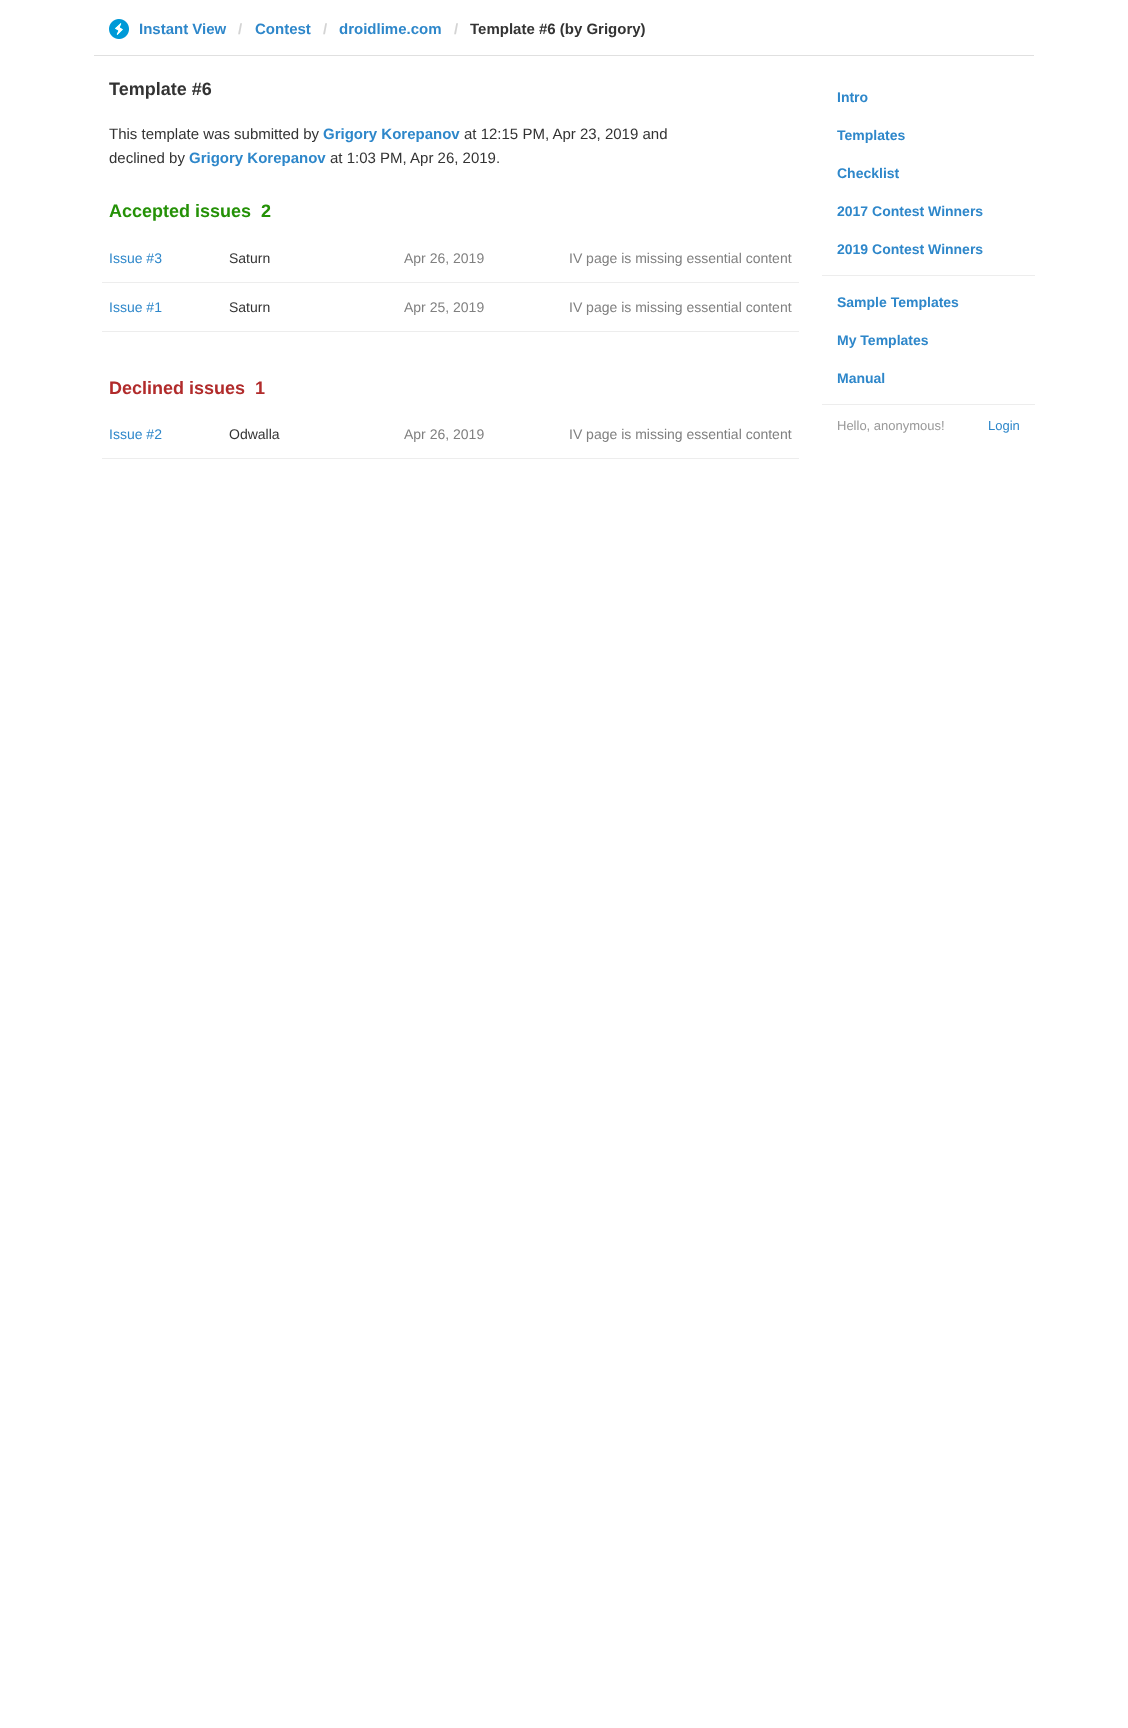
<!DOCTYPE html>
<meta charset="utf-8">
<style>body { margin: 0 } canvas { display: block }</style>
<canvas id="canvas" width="1128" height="1728"></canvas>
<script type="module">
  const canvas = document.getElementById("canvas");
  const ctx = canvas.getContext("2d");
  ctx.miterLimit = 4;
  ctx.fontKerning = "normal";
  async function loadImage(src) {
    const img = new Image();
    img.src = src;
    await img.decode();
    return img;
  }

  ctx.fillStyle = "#ffffff";
  ctx.fillRect(0, 0, 1128, 1728);
  ctx.fillStyle = "#e0e0e0";
  ctx.fillRect(94, 55, 940, 1);
  ctx.drawImage(await loadImage("img1.png"), 109, 19, 20, 20);
  ctx.font = "bold 15px Liberation Sans";
  ctx.fillStyle = "#2e87ca";
  ctx.fillText("Instant View", 139, 34);
  ctx.fillStyle = "#d4d4d4";
  ctx.fillText("/", 238, 34);
  ctx.fillStyle = "#2e87ca";
  ctx.fillText("Contest", 255, 34);
  ctx.fillStyle = "#d4d4d4";
  ctx.fillText("/", 323, 34);
  ctx.fillStyle = "#2e87ca";
  ctx.fillText("droidlime.com", 339, 34);
  ctx.fillStyle = "#d4d4d4";
  ctx.fillText("/", 454, 34);
  ctx.fillStyle = "#333333";
  ctx.fillText("Template #6 (by Grigory)", 470, 34);
  ctx.font = "bold 18px Liberation Sans";
  ctx.fillText("Template #6", 109, 95);
  ctx.font = "15px Liberation Sans";
  ctx.fillText("This template was submitted by", 109, 139);
  ctx.font = "bold 15px Liberation Sans";
  ctx.fillStyle = "#2e87ca";
  ctx.fillText("Grigory Korepanov", 323, 139);
  ctx.font = "15px Liberation Sans";
  ctx.fillStyle = "#333333";
  ctx.fillText("at 12:15 PM, Apr 23, 2019 and", 464, 139);
  ctx.fillText("declined by", 109, 163);
  ctx.font = "bold 15px Liberation Sans";
  ctx.fillStyle = "#2e87ca";
  ctx.fillText("Grigory Korepanov", 189, 163);
  ctx.font = "15px Liberation Sans";
  ctx.fillStyle = "#333333";
  ctx.fillText("at 1:03 PM, Apr 26, 2019.", 330, 163);
  ctx.font = "bold 18px Liberation Sans";
  ctx.fillStyle = "#249106";
  ctx.fillText("Accepted issues", 109, 217);
  ctx.fillText("2", 261, 217);
  ctx.fillStyle = "#ededed";
  ctx.fillRect(102, 282, 697, 1);
  ctx.font = "14px Liberation Sans";
  ctx.fillStyle = "#2e87ca";
  ctx.fillText("Issue #3", 109, 263);
  ctx.fillStyle = "#333333";
  ctx.fillText("Saturn", 229, 263);
  ctx.fillStyle = "#808080";
  ctx.fillText("Apr 26, 2019", 404, 263);
  ctx.fillText("IV page is missing essential content", 569, 263);
  ctx.fillStyle = "#ededed";
  ctx.fillRect(102, 331, 697, 1);
  ctx.fillStyle = "#2e87ca";
  ctx.fillText("Issue #1", 109, 312);
  ctx.fillStyle = "#333333";
  ctx.fillText("Saturn", 229, 312);
  ctx.fillStyle = "#808080";
  ctx.fillText("Apr 25, 2019", 404, 312);
  ctx.fillText("IV page is missing essential content", 569, 312);
  ctx.font = "bold 18px Liberation Sans";
  ctx.fillStyle = "#b12b2b";
  ctx.fillText("Declined issues", 109, 394);
  ctx.fillText("1", 255, 394);
  ctx.fillStyle = "#ededed";
  ctx.fillRect(102, 458, 697, 1);
  ctx.font = "14px Liberation Sans";
  ctx.fillStyle = "#2e87ca";
  ctx.fillText("Issue #2", 109, 439);
  ctx.fillStyle = "#333333";
  ctx.fillText("Odwalla", 229, 439);
  ctx.fillStyle = "#808080";
  ctx.fillText("Apr 26, 2019", 404, 439);
  ctx.fillText("IV page is missing essential content", 569, 439);
  ctx.font = "bold 14px Liberation Sans";
  ctx.fillStyle = "#2e87ca";
  ctx.fillText("Intro", 837, 102);
  ctx.fillText("Templates", 837, 140);
  ctx.fillText("Checklist", 837, 178);
  ctx.fillText("2017 Contest Winners", 837, 216);
  ctx.fillText("2019 Contest Winners", 837, 254);
  ctx.fillStyle = "#ededed";
  ctx.fillRect(822, 275, 213, 1);
  ctx.fillStyle = "#2e87ca";
  ctx.fillText("Sample Templates", 837, 307);
  ctx.fillText("My Templates", 837, 345);
  ctx.fillText("Manual", 837, 383);
  ctx.fillStyle = "#ededed";
  ctx.fillRect(822, 404, 213, 1);
  ctx.font = "13px Liberation Sans";
  ctx.fillStyle = "#999999";
  ctx.fillText("Hello, anonymous!", 837, 430);
  ctx.fillStyle = "#2e87ca";
  ctx.fillText("Login", 988, 430);
</script>
